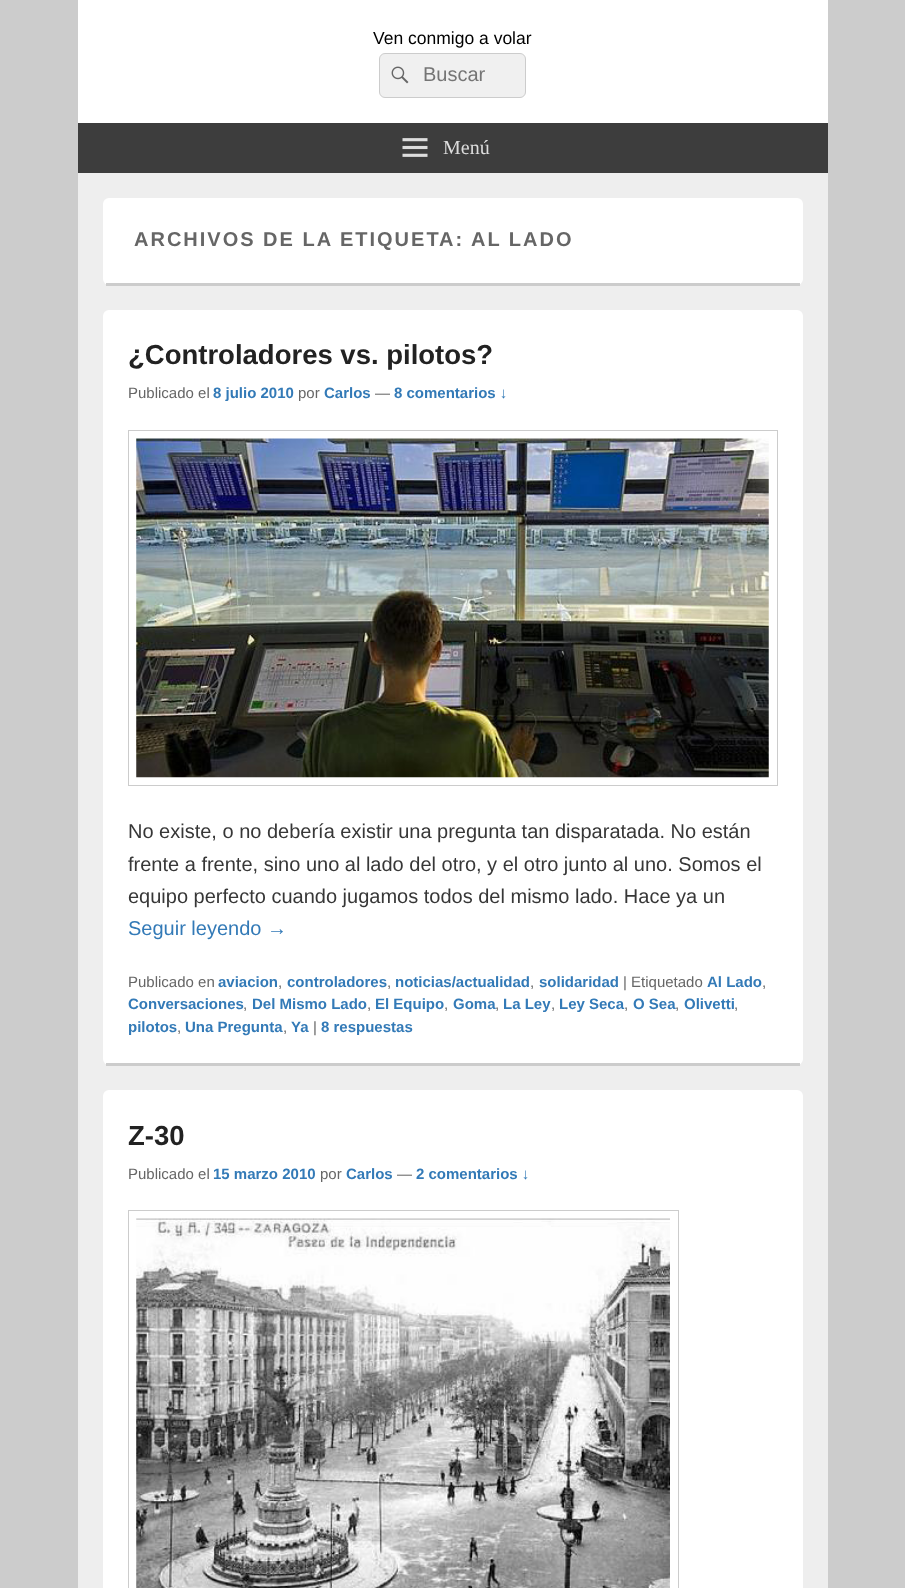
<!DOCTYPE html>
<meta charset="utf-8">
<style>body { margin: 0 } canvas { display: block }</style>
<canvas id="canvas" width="905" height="1588"></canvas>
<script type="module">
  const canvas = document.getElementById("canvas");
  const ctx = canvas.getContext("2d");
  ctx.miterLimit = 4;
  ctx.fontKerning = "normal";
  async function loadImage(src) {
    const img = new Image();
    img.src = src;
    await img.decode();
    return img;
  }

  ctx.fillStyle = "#cccccc";
  ctx.fillRect(0, 0, 905, 1588);
  ctx.fillStyle = "#eeeeee";
  ctx.fillRect(78, 173, 750, 1415);
  ctx.fillStyle = "#ffffff";
  ctx.fillRect(78, 0, 750, 123);
  ctx.font = "17.5px Liberation Sans";
  ctx.fillStyle = "#000000";
  ctx.fillText("Ven conmigo a volar", 373, 44);
  ctx.fillStyle = "#f0f0f0";
  ctx.beginPath();
  ctx.roundRect(379.5, 53.5, 146, 44, 5.5);
  ctx.fill();
  ctx.strokeStyle = "#cccccc";
  ctx.stroke();
  ctx.drawImage(await loadImage("img1.png"), 391, 66, 18, 18);
  ctx.font = "20px Liberation Sans";
  ctx.fillStyle = "#757575";
  ctx.fillText("Buscar", 423, 81);
  ctx.fillStyle = "#3d3d3d";
  ctx.fillRect(78, 123, 750, 50);
  ctx.drawImage(await loadImage("img2.png"), 402, 138, 26, 19);
  ctx.font = "20px Liberation Serif";
  ctx.fillStyle = "#dddddd";
  ctx.fillText("Menú", 443, 154);
  ctx.fillStyle = "#ffffff";
  ctx.beginPath();
  ctx.roundRect(103, 198, 700, 87, 6);
  ctx.fill();
  ctx.fillStyle = "#cccccc";
  ctx.fillRect(106, 283, 694, 3);
  ctx.letterSpacing = "2px";
  ctx.font = "bold 20px Liberation Sans";
  ctx.fillStyle = "#666666";
  ctx.fillText("ARCHIVOS DE LA ETIQUETA:", 134, 246);
  ctx.fillText("AL LADO", 471, 246);
  ctx.fillStyle = "#ffffff";
  ctx.beginPath();
  ctx.roundRect(103, 310, 700, 755, 6);
  ctx.fill();
  ctx.fillStyle = "#cccccc";
  ctx.fillRect(106, 1063, 694, 3);
  ctx.letterSpacing = "0px";
  ctx.font = "bold 27.5px Liberation Sans";
  ctx.fillStyle = "#222222";
  ctx.fillText("¿Controladores vs. pilotos?", 128, 364);
  ctx.font = "15px Liberation Sans";
  ctx.fillStyle = "#666666";
  ctx.fillText("Publicado el", 128, 398);
  ctx.font = "bold 15px Liberation Sans";
  ctx.fillStyle = "#337ab7";
  ctx.fillText("8 julio 2010", 213, 398);
  ctx.font = "15px Liberation Sans";
  ctx.fillStyle = "#666666";
  ctx.fillText("por", 298, 398);
  ctx.font = "bold 15px Liberation Sans";
  ctx.fillStyle = "#337ab7";
  ctx.fillText("Carlos", 324, 398);
  ctx.font = "15px Liberation Sans";
  ctx.fillStyle = "#666666";
  ctx.fillText("—", 375, 398);
  ctx.font = "bold 15px Liberation Sans";
  ctx.fillStyle = "#337ab7";
  ctx.fillText("8 comentarios ↓", 394, 398);
  ctx.strokeRect(128.5, 430.5, 649, 355);
  ctx.drawImage(await loadImage("img3.png"), 136, 438, 633, 340);
  ctx.font = "20px Liberation Sans";
  ctx.fillStyle = "#373737";
  ctx.fillText("No existe, o no debería existir una pregunta tan disparatada. No están", 128, 838);
  ctx.fillText("frente a frente, sino uno al lado del otro, y el otro junto al uno. Somos el", 128, 871);
  ctx.fillText("equipo perfecto cuando jugamos todos del mismo lado. Hace ya un", 128, 903);
  ctx.fillStyle = "#337ab7";
  ctx.fillText("Seguir leyendo →", 128, 935);
  ctx.font = "15px Liberation Sans";
  ctx.fillStyle = "#666666";
  ctx.fillText("Publicado en", 128, 987);
  ctx.font = "bold 15px Liberation Sans";
  ctx.fillStyle = "#337ab7";
  ctx.fillText("aviacion", 218, 987);
  ctx.font = "15px Liberation Sans";
  ctx.fillStyle = "#666666";
  ctx.fillText(",", 278, 987);
  ctx.font = "bold 15px Liberation Sans";
  ctx.fillStyle = "#337ab7";
  ctx.fillText("controladores", 287, 987);
  ctx.font = "15px Liberation Sans";
  ctx.fillStyle = "#666666";
  ctx.fillText(",", 387, 987);
  ctx.font = "bold 15px Liberation Sans";
  ctx.fillStyle = "#337ab7";
  ctx.fillText("noticias/actualidad", 395, 987);
  ctx.font = "15px Liberation Sans";
  ctx.fillStyle = "#666666";
  ctx.fillText(",", 530, 987);
  ctx.font = "bold 15px Liberation Sans";
  ctx.fillStyle = "#337ab7";
  ctx.fillText("solidaridad", 539, 987);
  ctx.font = "15px Liberation Sans";
  ctx.fillStyle = "#666666";
  ctx.fillText("| Etiquetado", 623, 987);
  ctx.font = "bold 15px Liberation Sans";
  ctx.fillStyle = "#337ab7";
  ctx.fillText("Al Lado", 707, 987);
  ctx.font = "15px Liberation Sans";
  ctx.fillStyle = "#666666";
  ctx.fillText(",", 762, 987);
  ctx.font = "bold 15px Liberation Sans";
  ctx.fillStyle = "#337ab7";
  ctx.fillText("Conversaciones", 128, 1009);
  ctx.font = "15px Liberation Sans";
  ctx.fillStyle = "#666666";
  ctx.fillText(",", 243, 1009);
  ctx.font = "bold 15px Liberation Sans";
  ctx.fillStyle = "#337ab7";
  ctx.fillText("Del Mismo Lado", 252, 1009);
  ctx.font = "15px Liberation Sans";
  ctx.fillStyle = "#666666";
  ctx.fillText(",", 367, 1009);
  ctx.font = "bold 15px Liberation Sans";
  ctx.fillStyle = "#337ab7";
  ctx.fillText("El Equipo", 375, 1009);
  ctx.font = "15px Liberation Sans";
  ctx.fillStyle = "#666666";
  ctx.fillText(",", 444, 1009);
  ctx.font = "bold 15px Liberation Sans";
  ctx.fillStyle = "#337ab7";
  ctx.fillText("Goma", 453, 1009);
  ctx.font = "15px Liberation Sans";
  ctx.fillStyle = "#666666";
  ctx.fillText(",", 495, 1009);
  ctx.font = "bold 15px Liberation Sans";
  ctx.fillStyle = "#337ab7";
  ctx.fillText("La Ley", 503, 1009);
  ctx.font = "15px Liberation Sans";
  ctx.fillStyle = "#666666";
  ctx.fillText(",", 551, 1009);
  ctx.font = "bold 15px Liberation Sans";
  ctx.fillStyle = "#337ab7";
  ctx.fillText("Ley Seca", 559, 1009);
  ctx.font = "15px Liberation Sans";
  ctx.fillStyle = "#666666";
  ctx.fillText(",", 624, 1009);
  ctx.font = "bold 15px Liberation Sans";
  ctx.fillStyle = "#337ab7";
  ctx.fillText("O Sea", 633, 1009);
  ctx.font = "15px Liberation Sans";
  ctx.fillStyle = "#666666";
  ctx.fillText(",", 675, 1009);
  ctx.font = "bold 15px Liberation Sans";
  ctx.fillStyle = "#337ab7";
  ctx.fillText("Olivetti", 684, 1009);
  ctx.font = "15px Liberation Sans";
  ctx.fillStyle = "#666666";
  ctx.fillText(",", 734, 1009);
  ctx.font = "bold 15px Liberation Sans";
  ctx.fillStyle = "#337ab7";
  ctx.fillText("pilotos", 128, 1032);
  ctx.font = "15px Liberation Sans";
  ctx.fillStyle = "#666666";
  ctx.fillText(",", 177, 1032);
  ctx.font = "bold 15px Liberation Sans";
  ctx.fillStyle = "#337ab7";
  ctx.fillText("Una Pregunta", 185, 1032);
  ctx.font = "15px Liberation Sans";
  ctx.fillStyle = "#666666";
  ctx.fillText(",", 283, 1032);
  ctx.font = "bold 15px Liberation Sans";
  ctx.fillStyle = "#337ab7";
  ctx.fillText("Ya", 291, 1032);
  ctx.font = "15px Liberation Sans";
  ctx.fillStyle = "#666666";
  ctx.fillText("|", 313, 1032);
  ctx.font = "bold 15px Liberation Sans";
  ctx.fillStyle = "#337ab7";
  ctx.fillText("8 respuestas", 321, 1032);
  ctx.fillStyle = "#ffffff";
  ctx.beginPath();
  ctx.roundRect(103, 1090, 700, 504, 6);
  ctx.fill();
  ctx.font = "bold 27.5px Liberation Sans";
  ctx.fillStyle = "#222222";
  ctx.fillText("Z-30", 128, 1145);
  ctx.font = "15px Liberation Sans";
  ctx.fillStyle = "#666666";
  ctx.fillText("Publicado el", 128, 1179);
  ctx.font = "bold 15px Liberation Sans";
  ctx.fillStyle = "#337ab7";
  ctx.fillText("15 marzo 2010", 213, 1179);
  ctx.font = "15px Liberation Sans";
  ctx.fillStyle = "#666666";
  ctx.fillText("por", 320, 1179);
  ctx.font = "bold 15px Liberation Sans";
  ctx.fillStyle = "#337ab7";
  ctx.fillText("Carlos", 346, 1179);
  ctx.font = "15px Liberation Sans";
  ctx.fillStyle = "#666666";
  ctx.fillText("—", 397, 1179);
  ctx.font = "bold 15px Liberation Sans";
  ctx.fillStyle = "#337ab7";
  ctx.fillText("2 comentarios ↓", 416, 1179);
  ctx.strokeRect(128.5, 1210.5, 550, 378);
  ctx.drawImage(await loadImage("img4.png"), 136, 1218, 534, 370);
</script>
